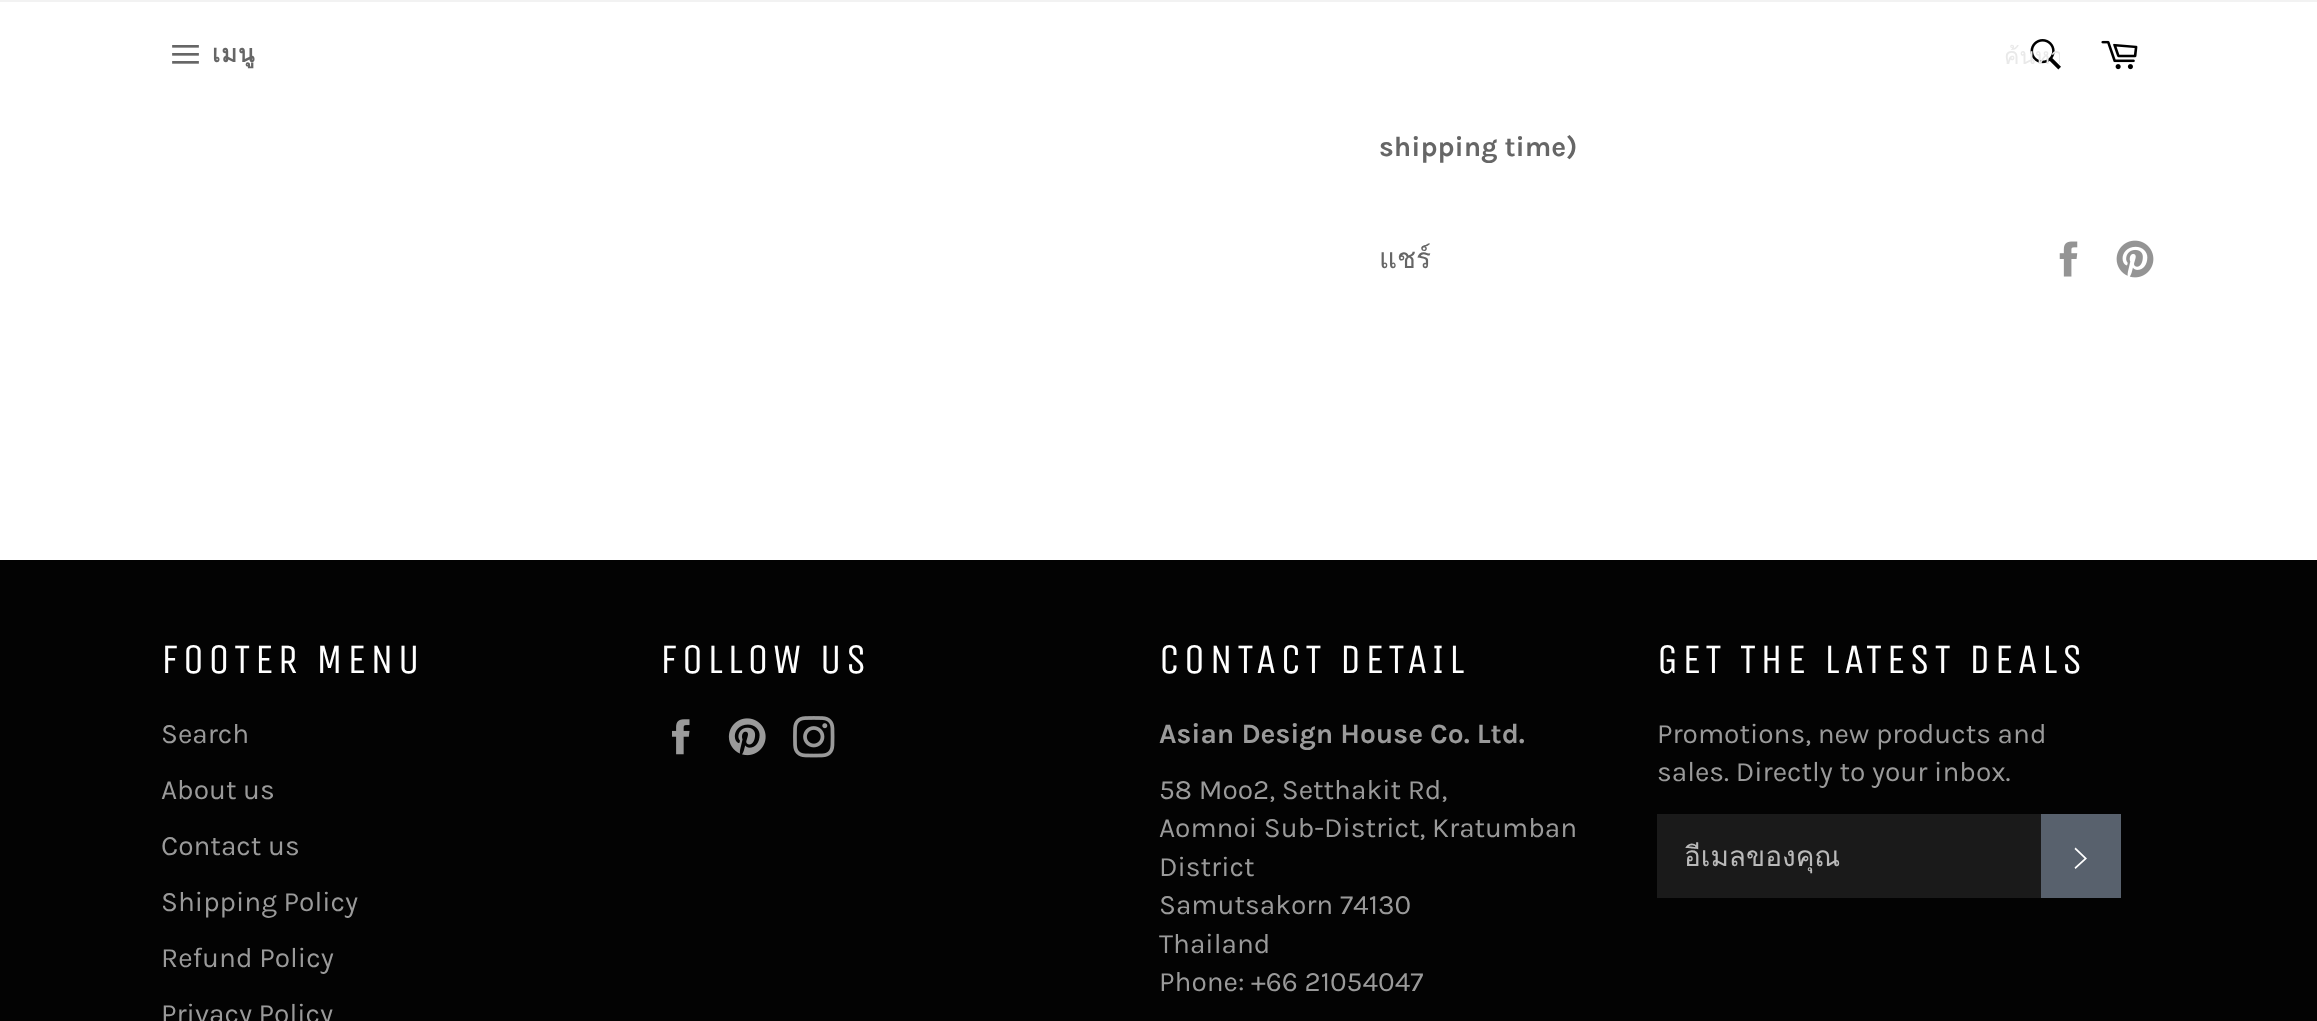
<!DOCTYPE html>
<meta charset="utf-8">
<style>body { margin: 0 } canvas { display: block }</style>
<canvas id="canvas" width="2317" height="1021"></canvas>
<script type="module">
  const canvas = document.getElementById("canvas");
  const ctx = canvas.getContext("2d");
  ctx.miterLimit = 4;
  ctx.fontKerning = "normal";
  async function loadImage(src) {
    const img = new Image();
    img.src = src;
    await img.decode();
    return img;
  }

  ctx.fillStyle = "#ffffff";
  ctx.fillRect(0, 0, 2317, 1021);
  ctx.fillStyle = "#f2f2f2";
  ctx.fillRect(0, 0, 2317, 2);
  ctx.drawImage(await loadImage("img1.png"), 172, 45, 27, 19);
  ctx.letterSpacing = "1px";
  ctx.font = "bold 24px Loma";
  ctx.fillStyle = "#666666";
  ctx.fillText("เมนู", 212, 62);
  ctx.drawImage(await loadImage("img2.png"), 2030, 39, 31, 31);
  ctx.save();
  ctx.beginPath();
  ctx.rect(2004, 39, 56, 36);
  ctx.clip();
  ctx.letterSpacing = "0px";
  ctx.font = "23px Loma";
  ctx.fillStyle = "#e9e9e9";
  ctx.fillText("ค้นหา", 2004, 64);
  ctx.restore();
  ctx.drawImage(await loadImage("img3.png"), 2101, 40, 37, 30);
  ctx.letterSpacing = "0px";
  ctx.font = "bold 28px Karla";
  ctx.fillText("shipping time)", 1379, 156);
  ctx.font = "28px Loma";
  ctx.fillText("แชร์", 1379, 268);
  ctx.drawImage(await loadImage("img4.png"), 2059, 241, 19, 36);
  ctx.drawImage(await loadImage("img5.png"), 2116, 240, 38, 38);
  ctx.fillStyle = "#030303";
  ctx.fillRect(0, 560, 2317, 461);
  ctx.letterSpacing = "4.25px";
  ctx.font = "42px Unica One";
  ctx.fillStyle = "#ffffff";
  ctx.fillText("FOOTER MENU", 161, 673);
  ctx.letterSpacing = "0px";
  ctx.font = "28px Karla";
  ctx.fillStyle = "#9a9a9a";
  ctx.fillText("Search", 161, 743);
  ctx.fillText("About us", 161, 799);
  ctx.fillText("Contact us", 161, 855);
  ctx.fillText("Shipping Policy", 161, 911);
  ctx.fillText("Refund Policy", 161, 967);
  ctx.fillText("Privacy Policy", 161, 1023);
  ctx.letterSpacing = "4.25px";
  ctx.font = "42px Unica One";
  ctx.fillStyle = "#ffffff";
  ctx.fillText("FOLLOW US", 660, 673);
  ctx.drawImage(await loadImage("img6.png"), 672, 719, 18, 36);
  ctx.drawImage(await loadImage("img7.png"), 728, 718, 38, 38);
  ctx.drawImage(await loadImage("img8.png"), 793, 716, 42, 42);
  ctx.fillText("CONTACT DETAIL", 1159, 673);
  ctx.letterSpacing = "0px";
  ctx.font = "bold 28px Karla";
  ctx.fillStyle = "#9a9a9a";
  ctx.fillText("Asian Design House Co. Ltd.", 1159, 743);
  ctx.font = "28px Karla";
  ctx.fillText("58 Moo2, Setthakit Rd,", 1159, 799);
  ctx.fillText("Aomnoi Sub-District, Kratumban", 1159, 837);
  ctx.fillText("District", 1159, 876);
  ctx.fillText("Samutsakorn 74130", 1159, 914);
  ctx.fillText("Thailand", 1159, 953);
  ctx.fillText("Phone: +66 21054047", 1159, 991);
  ctx.letterSpacing = "4.25px";
  ctx.font = "42px Unica One";
  ctx.fillStyle = "#ffffff";
  ctx.fillText("GET THE LATEST DEALS", 1657, 673);
  ctx.letterSpacing = "0px";
  ctx.font = "28px Karla";
  ctx.fillStyle = "#9a9a9a";
  ctx.fillText("Promotions, new products and", 1657, 743);
  ctx.fillText("sales. Directly to your inbox.", 1657, 781);
  ctx.fillStyle = "#1a1a1a";
  ctx.fillRect(1657, 814, 384, 84);
  ctx.save();
  ctx.beginPath();
  ctx.rect(1684, 835, 330, 44);
  ctx.clip();
  ctx.font = "28px Loma";
  ctx.fillStyle = "#bababa";
  ctx.fillText("อีเมลของคุณ", 1684, 866);
  ctx.restore();
  ctx.fillStyle = "#58616d";
  ctx.fillRect(2041, 814, 80, 84);
  ctx.fillStyle = "#ffffff";
  ctx.beginPath();
  ctx.moveTo(2074.5, 849);
  ctx.lineTo(2075.5, 847.5);
  ctx.lineTo(2087, 858.5);
  ctx.lineTo(2075.5, 869);
  ctx.lineTo(2074.5, 867.5);
  ctx.lineTo(2084.5, 858.5);
  ctx.closePath();
  ctx.fill();
</script>
